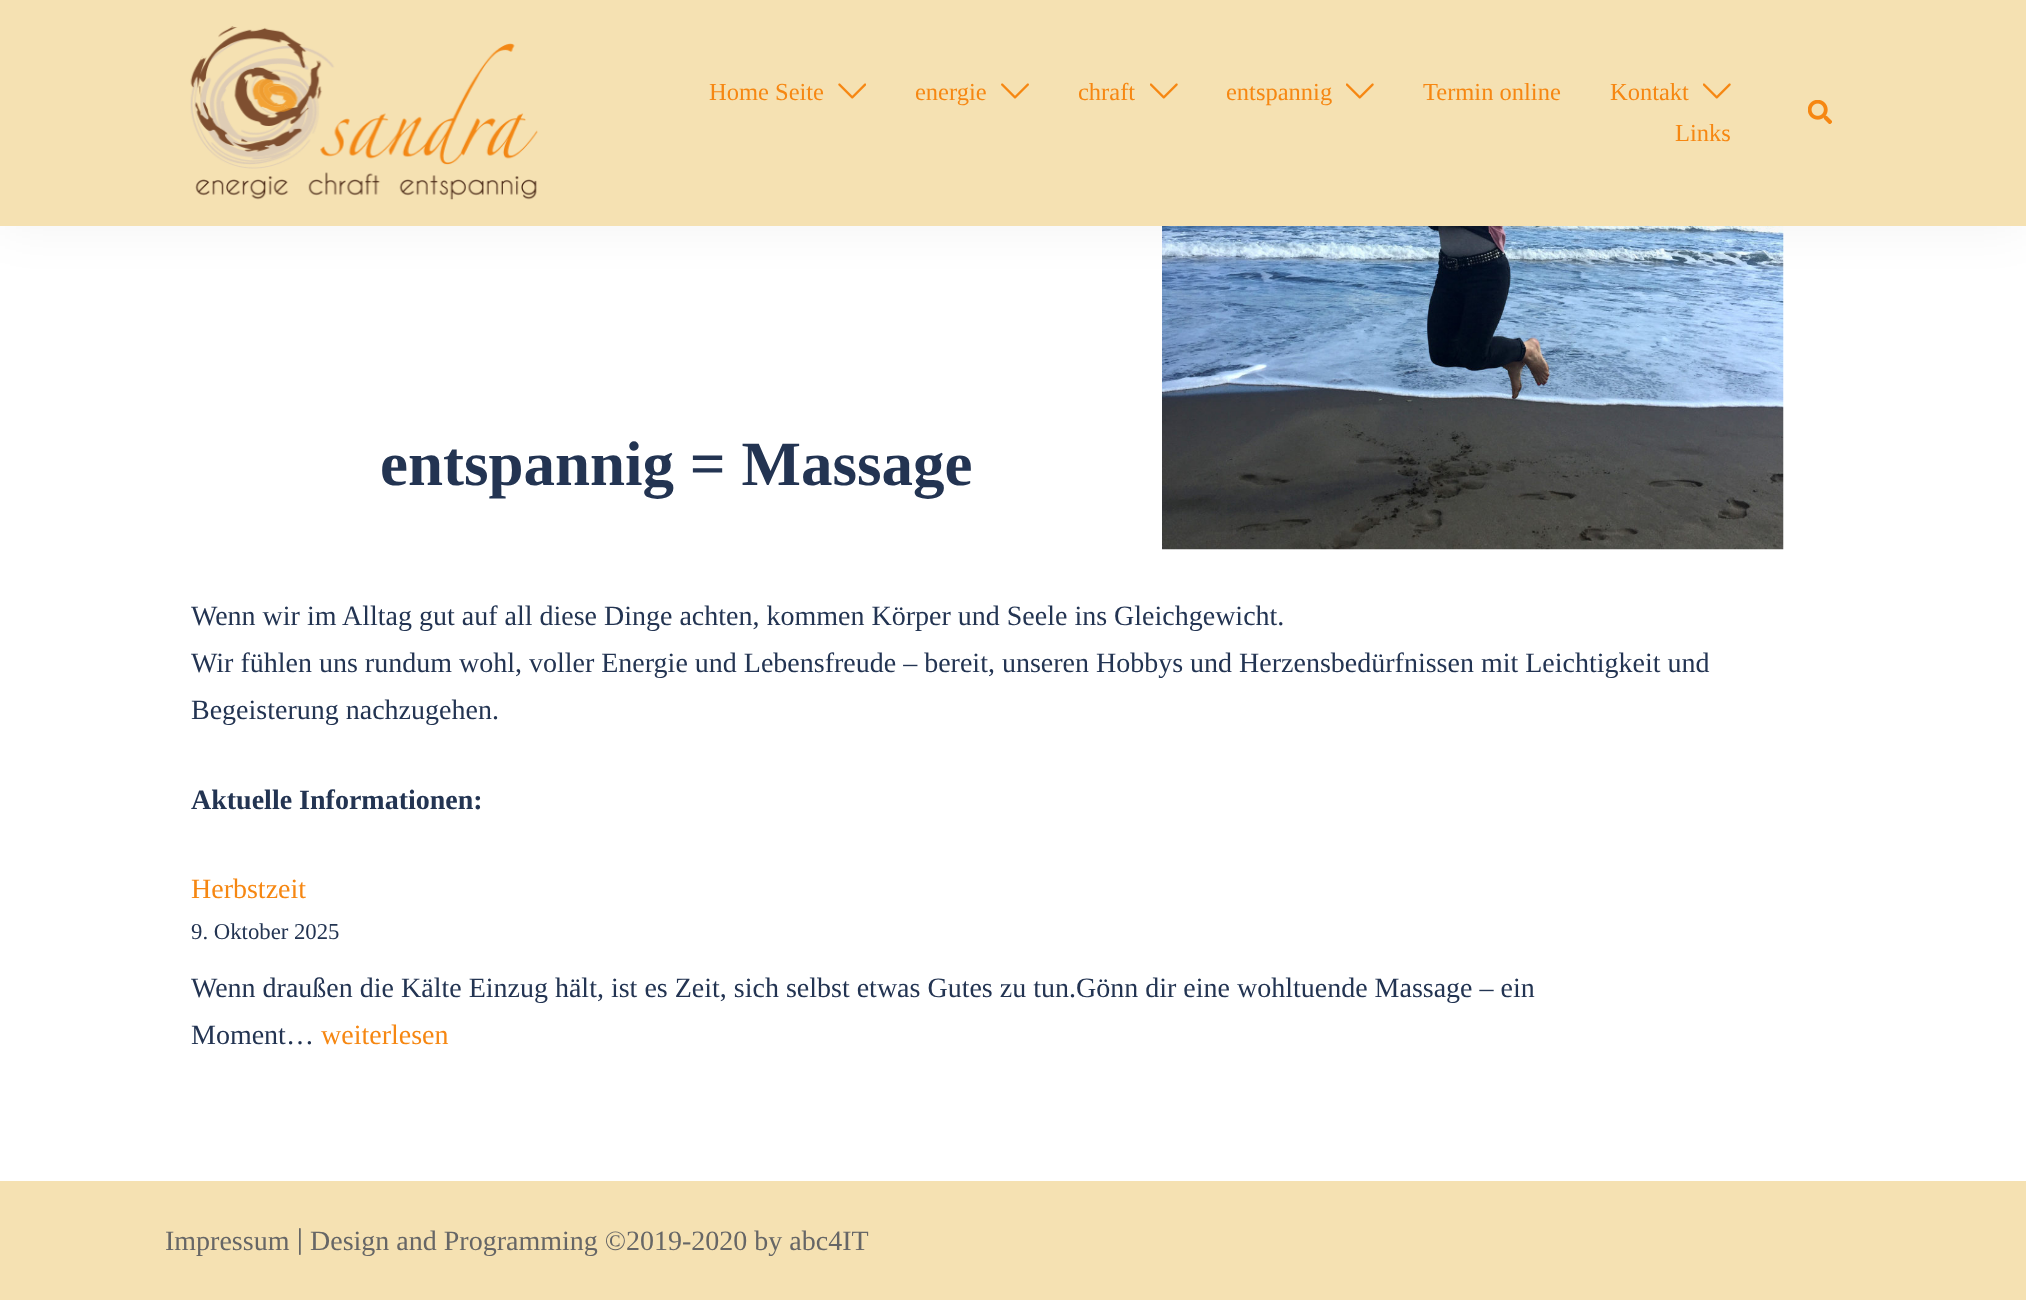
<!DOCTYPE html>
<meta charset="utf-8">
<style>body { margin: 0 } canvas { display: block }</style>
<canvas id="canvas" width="2026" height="1300"></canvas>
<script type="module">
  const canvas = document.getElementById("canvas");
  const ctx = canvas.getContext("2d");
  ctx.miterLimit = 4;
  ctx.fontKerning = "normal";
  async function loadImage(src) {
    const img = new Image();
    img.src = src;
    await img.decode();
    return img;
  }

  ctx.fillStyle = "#ffffff";
  ctx.fillRect(0, 0, 2026, 1300);
  ctx.drawImage(await loadImage("img6.png"), 1162, 226, 622, 324);
  ctx.fillStyle = "rgba(0, 0, 0, 0.05)";
  ctx.filter = "blur(26px)";
  ctx.beginPath();
  ctx.rect(0, 0, 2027, 226);
  ctx.fill();
  ctx.filter = "none";
  ctx.fillStyle = "#f5e1b2";
  ctx.fillRect(0, 0, 2026, 226);
  ctx.drawImage(await loadImage("img1.png"), 190, 26, 348, 174);
  ctx.font = "24.5px Liberation Serif";
  ctx.fillStyle = "#f68712";
  ctx.fillText("Home Seite", 709, 100);
  ctx.drawImage(await loadImage("img2.png"), 838, 83, 28, 16);
  ctx.fillText("energie", 915, 100);
  ctx.drawImage(await loadImage("img3.png"), 1001, 83, 28, 16);
  ctx.fillText("chraft", 1078, 100);
  ctx.drawImage(await loadImage("img4.png"), 1150, 83, 28, 16);
  ctx.fillText("entspannig", 1226, 100);
  ctx.drawImage(await loadImage("img4.png"), 1346, 83, 28, 16);
  ctx.fillText("Termin online", 1423, 100);
  ctx.fillText("Kontakt", 1610, 100);
  ctx.drawImage(await loadImage("img4.png"), 1703, 83, 28, 16);
  ctx.fillText("Links", 1675, 141);
  ctx.drawImage(await loadImage("img5.png"), 1808, 100, 24, 24);
  ctx.font = "bold 63px Liberation Serif";
  ctx.fillStyle = "#233452";
  ctx.fillText("entspannig = Massage", 380, 485);
  ctx.font = "28px Liberation Serif";
  ctx.fillText("Wenn wir im Alltag gut auf all diese Dinge achten, kommen Körper und Seele ins Gleichgewicht.", 191, 625);
  ctx.fillText("Wir fühlen uns rundum wohl, voller Energie und Lebensfreude – bereit, unseren Hobbys und Herzensbedürfnissen mit Leichtigkeit und", 191, 672);
  ctx.fillText("Begeisterung nachzugehen.", 191, 719);
  ctx.font = "bold 28px Liberation Serif";
  ctx.fillText("Aktuelle Informationen:", 191, 809);
  ctx.font = "28px Liberation Serif";
  ctx.fillStyle = "#f68712";
  ctx.fillText("Herbstzeit", 191, 898);
  ctx.font = "22.75px Liberation Serif";
  ctx.fillStyle = "#233452";
  ctx.fillText("9. Oktober 2025", 191, 939);
  ctx.font = "28px Liberation Serif";
  ctx.fillText("Wenn draußen die Kälte Einzug hält, ist es Zeit, sich selbst etwas Gutes zu tun.Gönn dir eine wohltuende Massage – ein", 191, 997);
  ctx.fillText("Moment…", 191, 1044);
  ctx.fillStyle = "#f68712";
  ctx.fillText("weiterlesen", 321, 1044);
  ctx.fillStyle = "#f5e1b2";
  ctx.fillRect(0, 1181, 2026, 119);
  ctx.fillStyle = "#666666";
  ctx.fillText("Impressum", 165, 1250);
  ctx.font = "28px Quicksand";
  ctx.fillText("|", 297, 1250);
  ctx.font = "28px Liberation Serif";
  ctx.fillText("Design and Programming ©2019-2020 by abc4IT", 310, 1250);
</script>
